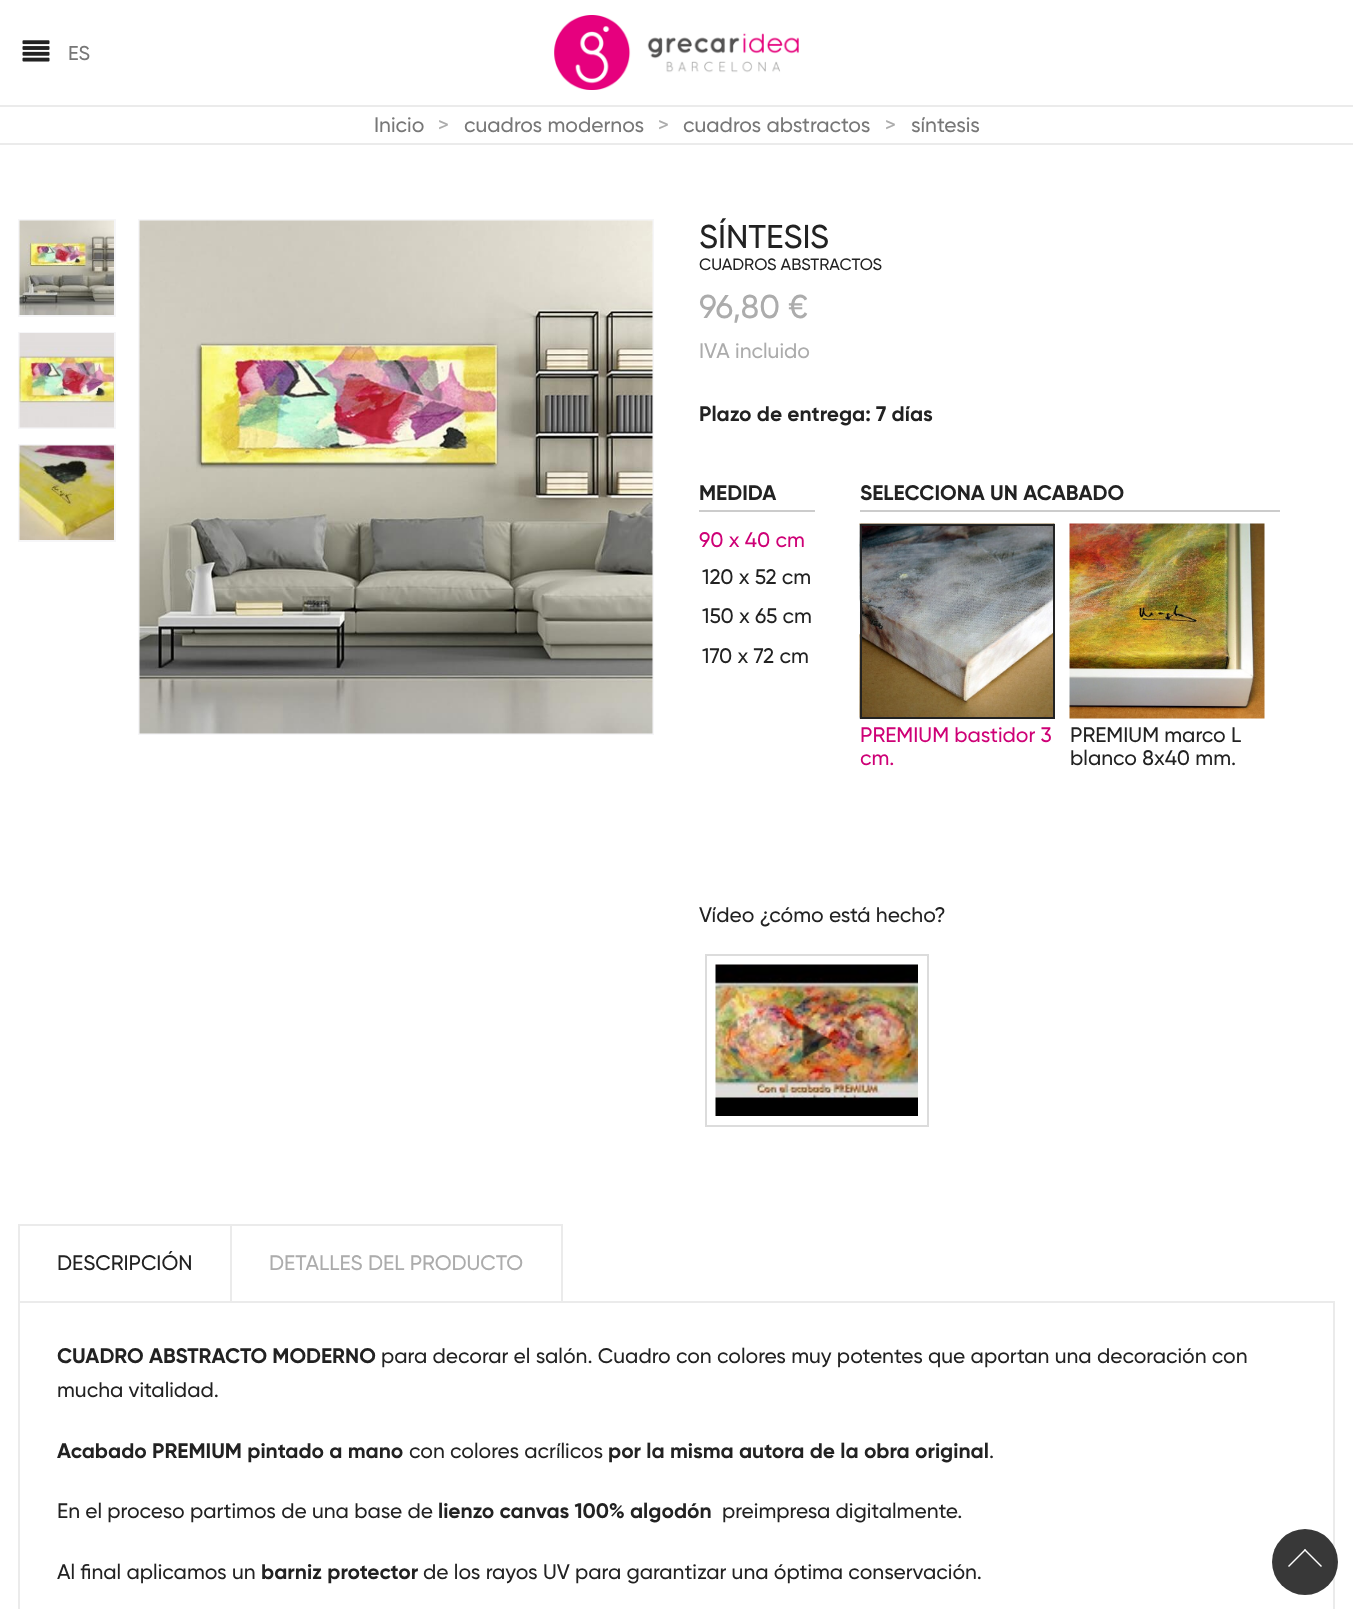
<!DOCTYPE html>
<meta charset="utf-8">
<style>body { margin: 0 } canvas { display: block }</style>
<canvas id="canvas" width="1353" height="1609"></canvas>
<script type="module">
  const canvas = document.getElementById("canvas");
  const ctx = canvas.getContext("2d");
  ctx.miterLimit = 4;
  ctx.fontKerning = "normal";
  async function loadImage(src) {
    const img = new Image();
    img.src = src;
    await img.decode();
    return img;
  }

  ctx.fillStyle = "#ffffff";
  ctx.fillRect(0, 0, 1353, 1609);
  ctx.drawImage(await loadImage("img1.png"), 22, 40, 28, 22);
  ctx.font = "500 20px Gilroy";
  ctx.fillStyle = "#777777";
  ctx.fillText("ES", 68, 60);
  ctx.drawImage(await loadImage("img2.png"), 554, 15, 245, 75);
  ctx.fillStyle = "#ebebeb";
  ctx.fillRect(0, 105, 1353, 2);
  ctx.fillRect(0, 143, 1353, 2);
  ctx.font = "500 21px Gilroy";
  ctx.fillStyle = "#777777";
  ctx.fillText("Inicio", 374, 132);
  ctx.fillStyle = "#acacac";
  ctx.fillText(">", 438, 132);
  ctx.fillStyle = "#777777";
  ctx.fillText("cuadros modernos", 464, 132);
  ctx.fillStyle = "#acacac";
  ctx.fillText(">", 658, 132);
  ctx.fillStyle = "#777777";
  ctx.fillText("cuadros abstractos", 683, 132);
  ctx.fillStyle = "#acacac";
  ctx.fillText(">", 885, 132);
  ctx.fillStyle = "#777777";
  ctx.fillText("síntesis", 911, 132);
  ctx.strokeStyle = "#f6f6f8";
  ctx.lineWidth = 2;
  ctx.strokeRect(19, 220, 96, 96);
  ctx.drawImage(await loadImage("img3.png"), 19, 220, 95, 95);
  ctx.strokeRect(19, 333, 96, 95);
  ctx.drawImage(await loadImage("img4.png"), 19, 333, 95, 95);
  ctx.strokeRect(19, 445, 96, 96);
  ctx.drawImage(await loadImage("img5.png"), 19, 445, 95, 95);
  ctx.strokeRect(139, 220, 514, 514);
  ctx.drawImage(await loadImage("img6.png"), 139, 220, 514, 514);
  ctx.font = "500 33px Gilroy";
  ctx.fillStyle = "#222222";
  ctx.fillText("SÍNTESIS", 699, 248);
  ctx.font = "500 16.5px Gilroy";
  ctx.fillText("CUADROS ABSTRACTOS", 699, 270);
  ctx.font = "500 33px Gilroy";
  ctx.fillStyle = "#acacac";
  ctx.fillText("96,80 €", 699, 318);
  ctx.font = "500 21px Gilroy";
  ctx.fillText("IVA incluido", 699, 358);
  ctx.font = "bold 21px Gilroy";
  ctx.fillStyle = "#222222";
  ctx.fillText("Plazo de entrega: 7 días", 699, 421);
  ctx.fillStyle = "#cccccc";
  ctx.fillRect(699, 510, 116, 2);
  ctx.fillStyle = "#222222";
  ctx.fillText("MEDIDA", 699, 500);
  ctx.font = "500 21px Gilroy";
  ctx.fillStyle = "#ce0076";
  ctx.fillText("90 x 40 cm", 699, 547);
  ctx.fillStyle = "#222222";
  ctx.fillText("120 x 52 cm", 702, 584);
  ctx.fillText("150 x 65 cm", 702, 623);
  ctx.fillText("170 x 72 cm", 702, 663);
  ctx.fillStyle = "#cccccc";
  ctx.fillRect(860, 510, 420, 2);
  ctx.font = "bold 21px Gilroy";
  ctx.fillStyle = "#222222";
  ctx.fillText("SELECCIONA UN ACABADO", 860, 500);
  ctx.drawImage(await loadImage("img7.png"), 859, 523, 196, 196);
  ctx.strokeStyle = "#222222";
  ctx.strokeRect(861, 525, 193, 193);
  ctx.font = "500 21px Gilroy";
  ctx.fillStyle = "#ce0076";
  ctx.fillText("PREMIUM bastidor 3", 860, 742);
  ctx.fillText("cm.", 860, 765);
  ctx.drawImage(await loadImage("img8.png"), 1069, 523, 196, 196);
  ctx.fillStyle = "#222222";
  ctx.fillText("PREMIUM marco L", 1070, 742);
  ctx.fillText("blanco 8x40 mm.", 1070, 765);
  ctx.fillText("Vídeo ¿cómo está hecho?", 699, 922);
  ctx.strokeStyle = "#dcdcdc";
  ctx.strokeRect(706, 955, 222, 171);
  ctx.drawImage(await loadImage("img9.png"), 715, 964, 203, 152);
  ctx.drawImage(await loadImage("img10.png"), 802, 1023, 32, 37);
  ctx.fillStyle = "#ebebeb";
  ctx.fillRect(18, 1224, 213, 2);
  ctx.fillRect(230, 1224, 2, 77);
  ctx.fillRect(18, 1224, 2, 77);
  ctx.fillStyle = "#222222";
  ctx.fillText("DESCRIPCIÓN", 57, 1270);
  ctx.fillStyle = "#ebebeb";
  ctx.fillRect(231, 1224, 332, 2);
  ctx.fillRect(561, 1224, 2, 77);
  ctx.fillStyle = "#acacac";
  ctx.fillText("DETALLES DEL PRODUCTO", 269, 1270);
  ctx.strokeStyle = "#ebebeb";
  ctx.strokeRect(19, 1302, 1315, 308);
  ctx.font = "bold 21px Gilroy";
  ctx.fillStyle = "#222222";
  ctx.fillText("CUADRO ABSTRACTO MODERNO", 57, 1363);
  ctx.font = "500 21px Gilroy";
  ctx.fillText("para decorar el salón. Cuadro con colores muy potentes que aportan una decoración con", 381, 1363);
  ctx.fillText("mucha vitalidad.", 57, 1397);
  ctx.font = "bold 21px Gilroy";
  ctx.fillText("Acabado PREMIUM pintado a mano", 57, 1458);
  ctx.font = "500 21px Gilroy";
  ctx.fillText("con colores acrílicos", 409, 1458);
  ctx.font = "bold 21px Gilroy";
  ctx.fillText("por la misma autora de la obra original", 608, 1458);
  ctx.font = "500 21px Gilroy";
  ctx.fillText(".", 989, 1458);
  ctx.fillText("En el proceso partimos de una base de", 57, 1518);
  ctx.font = "bold 21px Gilroy";
  ctx.fillText("lienzo canvas 100% algodón", 438, 1518);
  ctx.font = "500 21px Gilroy";
  ctx.fillText("preimpresa digitalmente.", 722, 1518);
  ctx.fillText("Al final aplicamos un", 57, 1579);
  ctx.font = "bold 21px Gilroy";
  ctx.fillText("barniz protector", 261, 1579);
  ctx.font = "500 21px Gilroy";
  ctx.fillText("de los rayos UV para garantizar una óptima conservación.", 423, 1579);
  ctx.fillStyle = "rgba(34, 34, 34, 0.9)";
  ctx.beginPath();
  ctx.arc(1305, 1562, 33, 0, Math.PI * 2);
  ctx.fill();
  ctx.fillStyle = "#ffffff";
  ctx.beginPath();
  ctx.moveTo(1288, 1566);
  ctx.lineTo(1305, 1549);
  ctx.lineTo(1306, 1550);
  ctx.lineTo(1289, 1567);
  ctx.closePath();
  ctx.fill();
  ctx.beginPath();
  ctx.moveTo(1304, 1550);
  ctx.lineTo(1305, 1549);
  ctx.lineTo(1322, 1566);
  ctx.lineTo(1321, 1567);
  ctx.closePath();
  ctx.fill();
</script>
